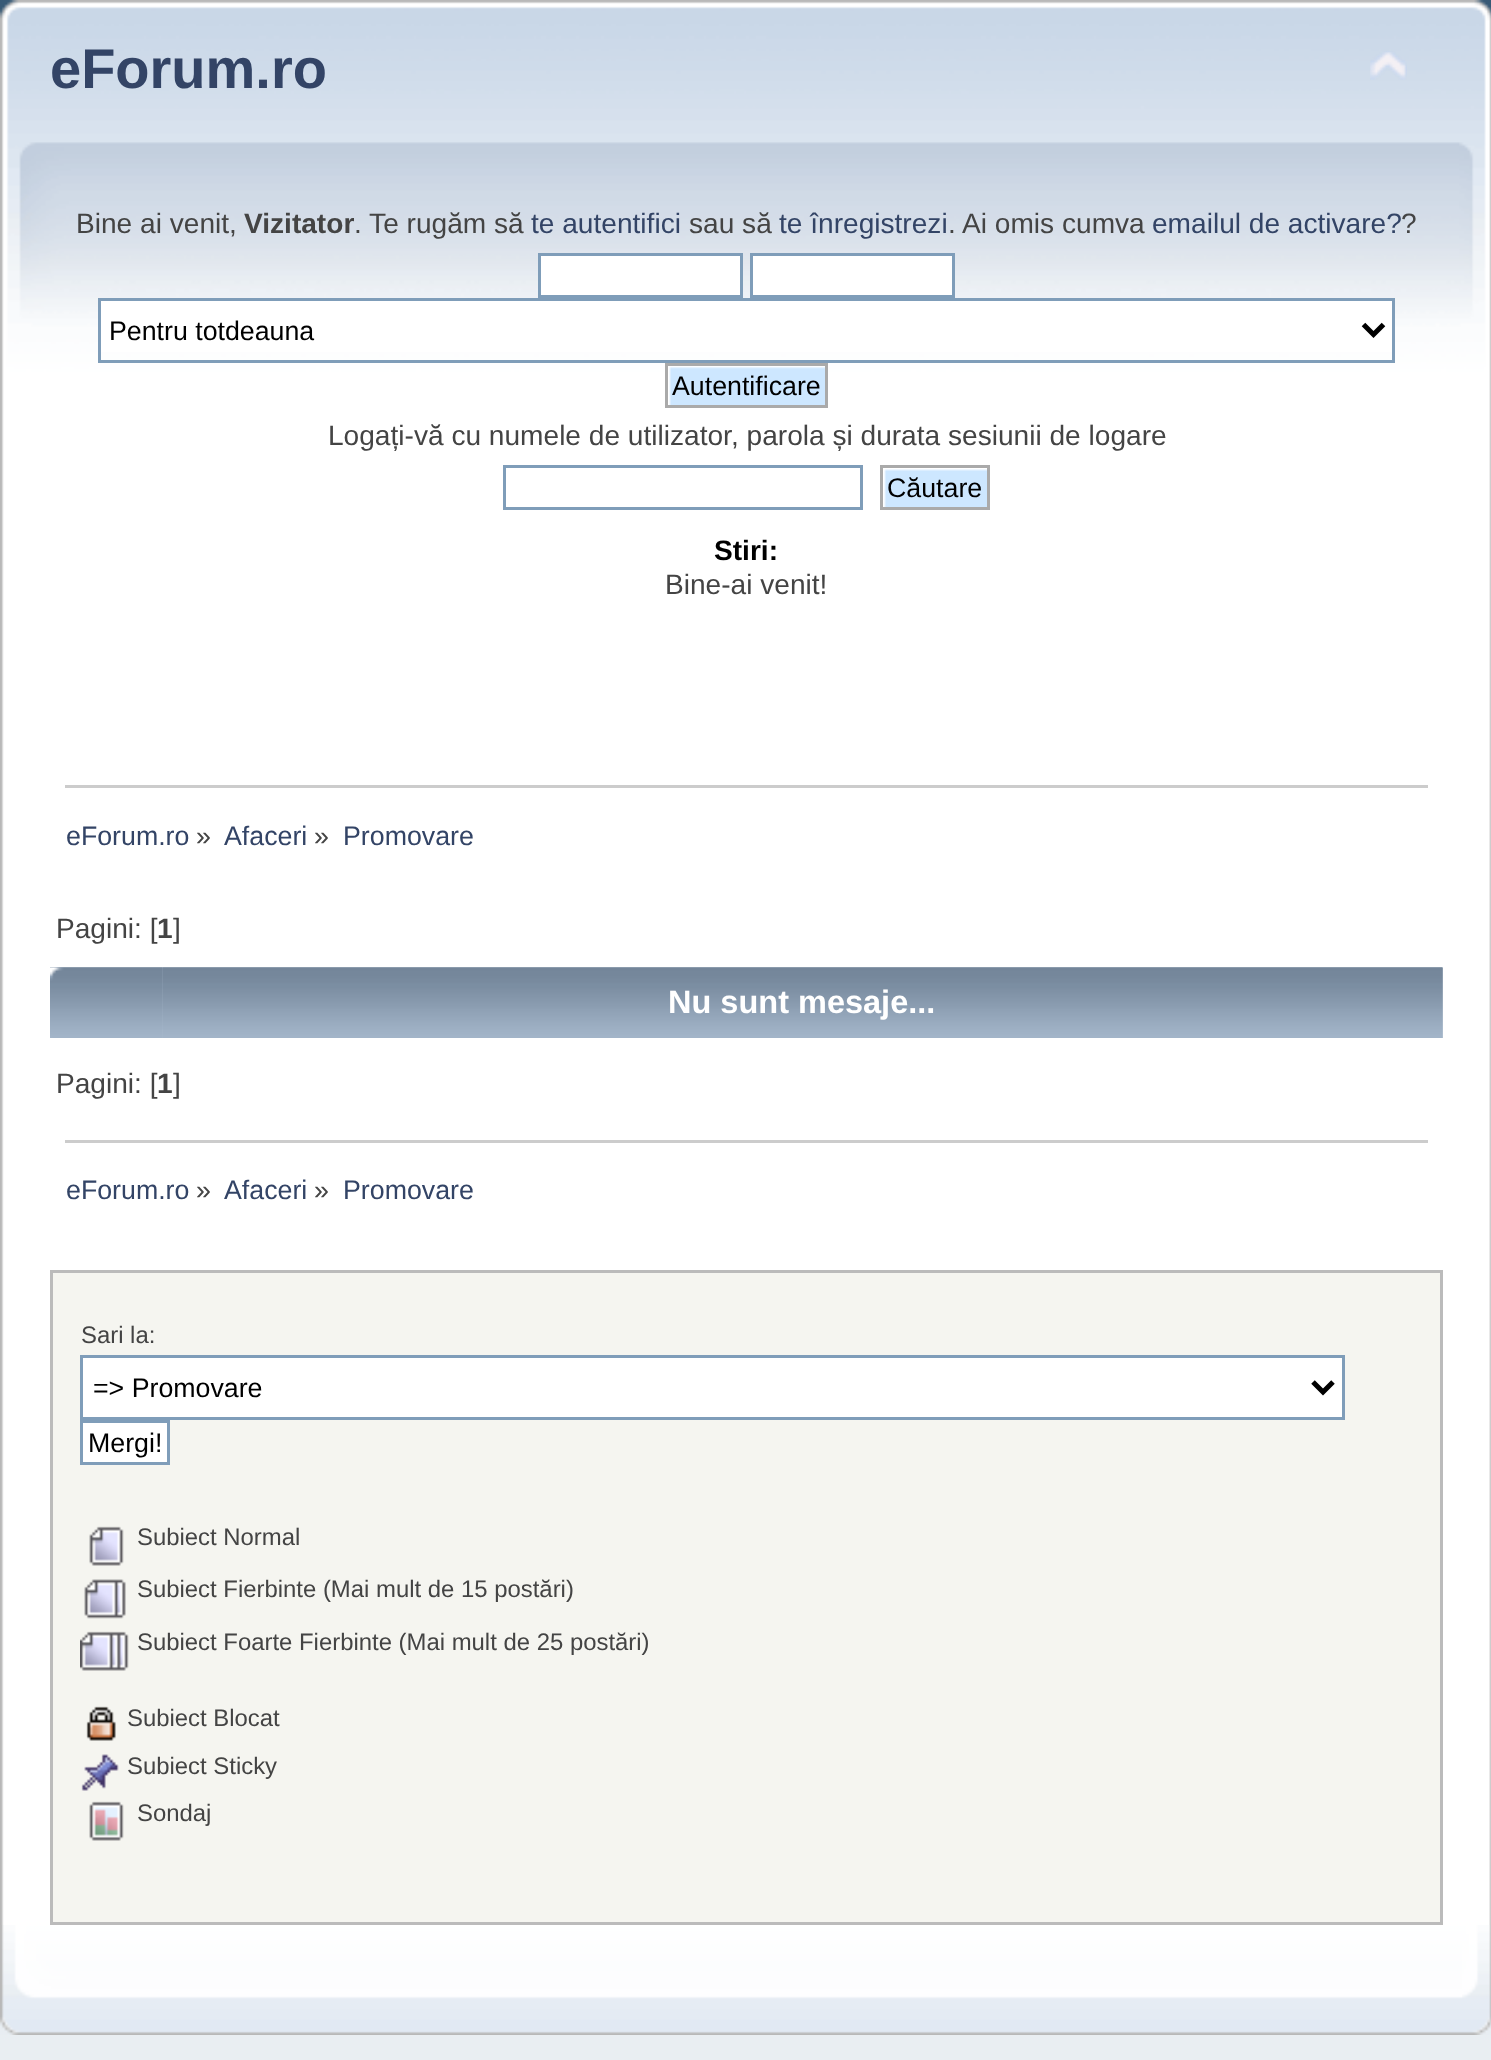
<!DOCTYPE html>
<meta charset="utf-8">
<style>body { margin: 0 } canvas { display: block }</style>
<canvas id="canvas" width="1491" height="2060"></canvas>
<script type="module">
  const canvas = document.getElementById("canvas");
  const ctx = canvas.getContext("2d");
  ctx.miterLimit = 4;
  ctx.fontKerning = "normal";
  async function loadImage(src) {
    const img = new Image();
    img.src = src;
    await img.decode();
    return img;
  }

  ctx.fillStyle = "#e9eef2";
  ctx.fillRect(0, 0, 1491, 2060);
  ctx.drawImage(await loadImage("img1.png"), 0, 0, 1459, 770);
  ctx.drawImage(await loadImage("img2.png"), 1459, 0, 32, 770);
  ctx.font = "bold 56px Liberation Sans";
  ctx.fillStyle = "#334466";
  ctx.fillText("eForum.ro", 50, 88);
  ctx.drawImage(await loadImage("img3.png"), 1370, 51, 37, 29);
  ctx.font = "28.1px Liberation Sans";
  ctx.fillStyle = "#444444";
  ctx.fillText("Bine ai venit,", 76, 233);
  ctx.font = "bold 28.1px Liberation Sans";
  ctx.fillText("Vizitator", 244, 233);
  ctx.font = "28.1px Liberation Sans";
  ctx.fillText(". Te rugăm să", 354, 233);
  ctx.fillStyle = "#334466";
  ctx.fillText("te autentifici", 531, 233);
  ctx.fillStyle = "#444444";
  ctx.fillText("sau să", 689, 233);
  ctx.fillStyle = "#334466";
  ctx.fillText("te înregistrezi", 779, 233);
  ctx.fillStyle = "#444444";
  ctx.fillText(". Ai omis cumva", 948, 233);
  ctx.fillStyle = "#334466";
  ctx.fillText("emailul de activare?", 1152, 233);
  ctx.fillStyle = "#444444";
  ctx.fillText("?", 1401, 233);
  ctx.fillStyle = "#ffffff";
  ctx.beginPath();
  ctx.rect(539.5, 254.5, 202, 42);
  ctx.fill();
  ctx.strokeStyle = "#7f9db9";
  ctx.lineWidth = 3;
  ctx.stroke();
  ctx.beginPath();
  ctx.rect(751.5, 254.5, 202, 42);
  ctx.fill();
  ctx.stroke();
  ctx.fillRect(101, 301, 1291, 51);
  ctx.strokeRect(99.5, 299.5, 1294, 62);
  ctx.beginPath();
  ctx.moveTo(1363.5, 324.5);
  ctx.lineTo(1373.5, 334.5);
  ctx.lineTo(1383.5, 324.5);
  ctx.strokeStyle = "#000000";
  ctx.lineWidth = 5;
  ctx.stroke();
  ctx.font = "26.75px Liberation Sans";
  ctx.fillStyle = "#000000";
  ctx.fillText("Pentru totdeauna", 109, 340);
  ctx.drawImage(await loadImage("img4.png"), 668, 366, 157, 39);
  ctx.strokeStyle = "#aaaaaa";
  ctx.lineWidth = 3;
  ctx.strokeRect(666.5, 364.5, 160, 42);
  ctx.fillText("Autentificare", 672, 395);
  ctx.font = "28.1px Liberation Sans";
  ctx.fillStyle = "#444444";
  ctx.fillText("Logați-vă cu numele de utilizator, parola și durata sesiunii de logare", 328, 445);
  ctx.strokeStyle = "#7f9db9";
  ctx.strokeRect(504.5, 466.5, 357, 42);
  ctx.drawImage(await loadImage("img5.png"), 883, 468, 104, 39);
  ctx.strokeStyle = "#aaaaaa";
  ctx.strokeRect(881.5, 466.5, 107, 42);
  ctx.font = "26.75px Liberation Sans";
  ctx.fillStyle = "#000000";
  ctx.fillText("Căutare", 887, 497);
  ctx.font = "bold 28.1px Liberation Sans";
  ctx.fillText("Stiri:", 714, 560);
  ctx.font = "28.1px Liberation Sans";
  ctx.fillStyle = "#444444";
  ctx.fillText("Bine-ai venit!", 665, 594);
  ctx.fillStyle = "#ffffff";
  ctx.fillRect(4, 770, 1485, 1155);
  ctx.drawImage(await loadImage("img6.png"), 0, 770, 4, 1155);
  ctx.drawImage(await loadImage("img7.png"), 1489, 770, 2, 1155);
  ctx.fillStyle = "#cccccc";
  ctx.fillRect(65, 785, 1363, 3);
  ctx.font = "26.75px Liberation Sans";
  ctx.fillStyle = "#334466";
  ctx.fillText("eForum.ro", 66, 845);
  ctx.fillStyle = "#444444";
  ctx.fillText("»", 196, 845);
  ctx.fillStyle = "#334466";
  ctx.fillText("Afaceri", 224, 845);
  ctx.fillStyle = "#444444";
  ctx.fillText("»", 314, 845);
  ctx.fillStyle = "#334466";
  ctx.fillText("Promovare", 343, 845);
  ctx.font = "28.1px Liberation Sans";
  ctx.fillStyle = "#444444";
  ctx.fillText("Pagini: [", 56, 938);
  ctx.font = "bold 28.1px Liberation Sans";
  ctx.fillText("1", 157, 938);
  ctx.font = "28.1px Liberation Sans";
  ctx.fillText("]", 173, 938);
  ctx.drawImage(await loadImage("img8.png"), 50, 967, 113, 71);
  ctx.drawImage(await loadImage("img9.png"), 162, 967, 1281, 71);
  ctx.font = "bold 32.5px Liberation Sans";
  ctx.fillStyle = "#ffffff";
  ctx.fillText("Nu sunt mesaje...", 668, 1013);
  ctx.font = "28.1px Liberation Sans";
  ctx.fillStyle = "#444444";
  ctx.fillText("Pagini: [", 56, 1093);
  ctx.font = "bold 28.1px Liberation Sans";
  ctx.fillText("1", 157, 1093);
  ctx.font = "28.1px Liberation Sans";
  ctx.fillText("]", 173, 1093);
  ctx.fillStyle = "#cccccc";
  ctx.fillRect(65, 1140, 1363, 3);
  ctx.font = "26.75px Liberation Sans";
  ctx.fillStyle = "#334466";
  ctx.fillText("eForum.ro", 66, 1199);
  ctx.fillStyle = "#444444";
  ctx.fillText("»", 196, 1199);
  ctx.fillStyle = "#334466";
  ctx.fillText("Afaceri", 224, 1199);
  ctx.fillStyle = "#444444";
  ctx.fillText("»", 314, 1199);
  ctx.fillStyle = "#334466";
  ctx.fillText("Promovare", 343, 1199);
  ctx.fillStyle = "#f5f5f0";
  ctx.beginPath();
  ctx.rect(51.5, 1271.5, 1390, 652);
  ctx.fill();
  ctx.strokeStyle = "#bbbbbb";
  ctx.stroke();
  ctx.font = "23.9px Liberation Sans";
  ctx.fillStyle = "#444444";
  ctx.fillText("Sari la:", 81, 1343);
  ctx.fillStyle = "#ffffff";
  ctx.beginPath();
  ctx.rect(81.5, 1356.5, 1262, 62);
  ctx.fill();
  ctx.strokeStyle = "#7f9db9";
  ctx.stroke();
  ctx.beginPath();
  ctx.moveTo(1313, 1382);
  ctx.lineTo(1323, 1392);
  ctx.lineTo(1333, 1382);
  ctx.strokeStyle = "#000000";
  ctx.lineWidth = 5;
  ctx.stroke();
  ctx.font = "26.75px Liberation Sans";
  ctx.fillStyle = "#000000";
  ctx.fillText("=> Promovare", 93, 1397);
  ctx.fillStyle = "#ffffff";
  ctx.beginPath();
  ctx.rect(81.5, 1421.5, 87, 42);
  ctx.fill();
  ctx.strokeStyle = "#7f9db9";
  ctx.lineWidth = 3;
  ctx.stroke();
  ctx.fillStyle = "#000000";
  ctx.fillText("Mergi!", 88, 1452);
  ctx.drawImage(await loadImage("img10.png"), 89, 1526, 35, 40);
  ctx.font = "23.9px Liberation Sans";
  ctx.fillStyle = "#444444";
  ctx.fillText("Subiect Normal", 137, 1545);
  ctx.drawImage(await loadImage("img11.png"), 84, 1579, 42, 40);
  ctx.fillText("Subiect Fierbinte (Mai mult de 15 postări)", 137, 1597);
  ctx.drawImage(await loadImage("img12.png"), 80, 1631, 49, 40);
  ctx.fillText("Subiect Foarte Fierbinte (Mai mult de 25 postări)", 137, 1650);
  ctx.drawImage(await loadImage("img13.png"), 86, 1706, 30, 35);
  ctx.fillText("Subiect Blocat", 127, 1726);
  ctx.drawImage(await loadImage("img14.png"), 81, 1754, 38, 37);
  ctx.fillText("Subiect Sticky", 127, 1774);
  ctx.drawImage(await loadImage("img15.png"), 89, 1801, 35, 40);
  ctx.fillText("Sondaj", 137, 1821);
  ctx.drawImage(await loadImage("img16.png"), 0, 1925, 1462, 110);
  ctx.drawImage(await loadImage("img17.png"), 1462, 1925, 29, 110);
</script>
